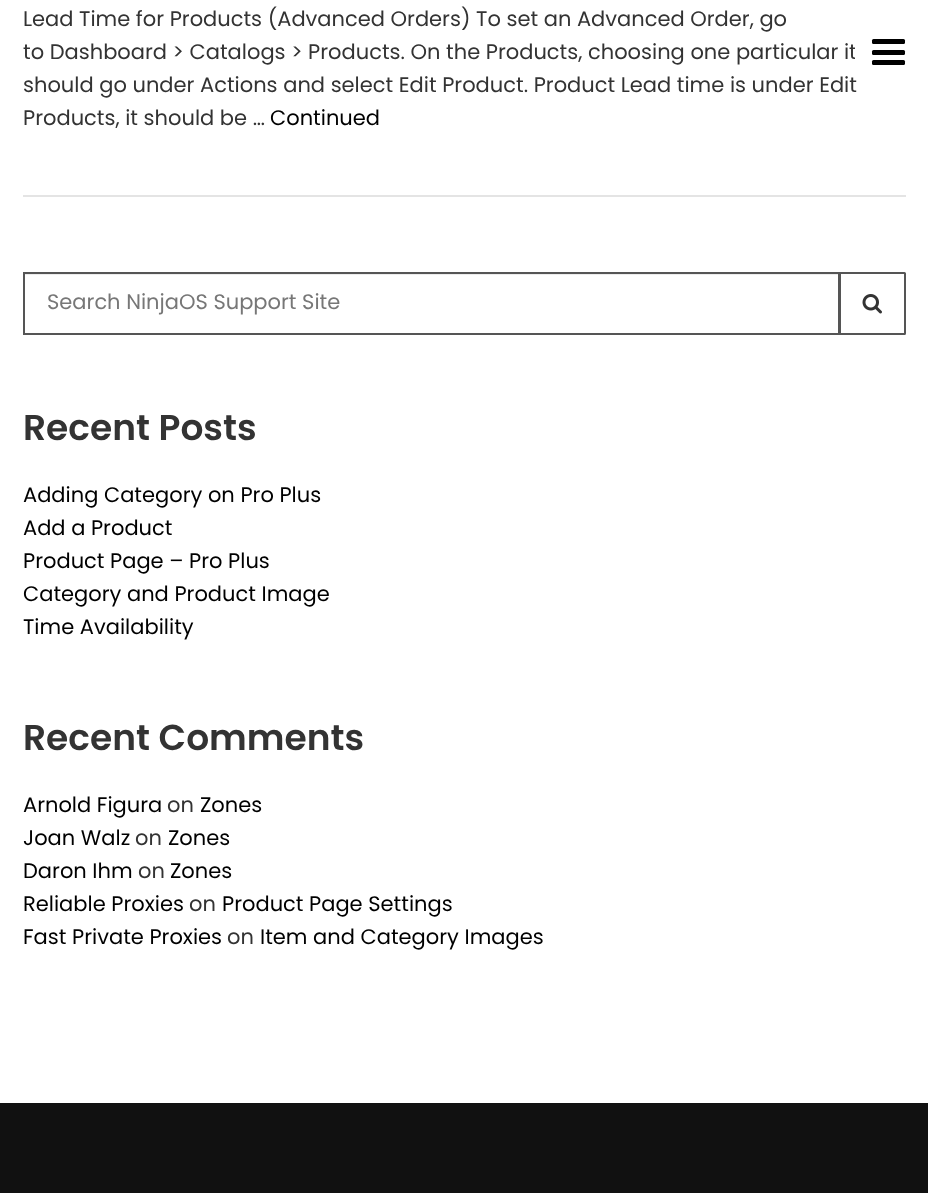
<!DOCTYPE html>
<meta charset="utf-8">
<style>body { margin: 0 } canvas { display: block }</style>
<canvas id="canvas" width="928" height="1193"></canvas>
<script type="module">
  const canvas = document.getElementById("canvas");
  const ctx = canvas.getContext("2d");
  ctx.miterLimit = 4;
  ctx.fontKerning = "normal";
  async function loadImage(src) {
    const img = new Image();
    img.src = src;
    await img.decode();
    return img;
  }

  ctx.fillStyle = "#ffffff";
  ctx.fillRect(0, 0, 928, 1193);
  ctx.fillStyle = "#e4e4e4";
  ctx.fillRect(23, 195, 883, 2);
  ctx.font = "21px Poppins";
  ctx.fillStyle = "#333333";
  ctx.fillText("Lead Time for Products (Advanced Orders) To set an Advanced Order, go", 23, 26);
  ctx.fillText("to Dashboard > Catalogs > Products. On the Products, choosing one particular it", 23, 59);
  ctx.fillText("should go under Actions and select Edit Product. Product Lead time is under Edit", 23, 92);
  ctx.fillText("Products, it should be …", 23, 125);
  ctx.fillStyle = "#000000";
  ctx.fillText("Continued", 270, 125);
  ctx.fillStyle = "#ececec";
  ctx.fillRect(24, 274, 815, 1);
  ctx.beginPath();
  ctx.roundRect(840, 273, 65, 61, [0, 0.5, 0.5, 0]);
  ctx.strokeStyle = "#555555";
  ctx.lineWidth = 2;
  ctx.stroke();
  ctx.strokeRect(24, 273, 815, 61);
  ctx.fillStyle = "#777777";
  ctx.fillText("Search NinjaOS Support Site", 47, 309);
  ctx.drawImage(await loadImage("img1.png"), 862, 294, 20, 20);
  ctx.font = "600 36px Poppins";
  ctx.fillStyle = "#333333";
  ctx.fillText("Recent Posts", 23, 440);
  ctx.font = "21px Poppins";
  ctx.fillStyle = "#000000";
  ctx.fillText("Adding Category on Pro Plus", 23, 502);
  ctx.fillText("Add a Product", 23, 535);
  ctx.fillText("Product Page – Pro Plus", 23, 568);
  ctx.fillText("Category and Product Image", 23, 601);
  ctx.fillText("Time Availability", 23, 634);
  ctx.font = "600 36px Poppins";
  ctx.fillStyle = "#333333";
  ctx.fillText("Recent Comments", 23, 750);
  ctx.font = "21px Poppins";
  ctx.fillStyle = "#000000";
  ctx.fillText("Arnold Figura", 23, 812);
  ctx.fillStyle = "#333333";
  ctx.fillText("on", 167, 812);
  ctx.fillStyle = "#000000";
  ctx.fillText("Zones", 200, 812);
  ctx.fillText("Joan Walz", 23, 845);
  ctx.fillStyle = "#333333";
  ctx.fillText("on", 135, 845);
  ctx.fillStyle = "#000000";
  ctx.fillText("Zones", 168, 845);
  ctx.fillText("Daron Ihm", 23, 878);
  ctx.fillStyle = "#333333";
  ctx.fillText("on", 138, 878);
  ctx.fillStyle = "#000000";
  ctx.fillText("Zones", 170, 878);
  ctx.fillText("Reliable Proxies", 23, 911);
  ctx.fillStyle = "#333333";
  ctx.fillText("on", 189, 911);
  ctx.fillStyle = "#000000";
  ctx.fillText("Product Page Settings", 222, 911);
  ctx.fillText("Fast Private Proxies", 23, 944);
  ctx.fillStyle = "#333333";
  ctx.fillText("on", 227, 944);
  ctx.fillStyle = "#000000";
  ctx.fillText("Item and Category Images", 260, 944);
  ctx.fillStyle = "#ffffff";
  ctx.beginPath();
  ctx.roundRect(855, 24, 66, 56, 1.5);
  ctx.fill();
  ctx.fillStyle = "#000000";
  ctx.beginPath();
  ctx.roundRect(872, 39, 33, 5, 1.5);
  ctx.fill();
  ctx.beginPath();
  ctx.roundRect(872, 50, 33, 5, 1.5);
  ctx.fill();
  ctx.beginPath();
  ctx.roundRect(872, 60, 33, 5, 1.5);
  ctx.fill();
  ctx.fillStyle = "#111111";
  ctx.fillRect(0, 1103, 928, 90);
</script>
